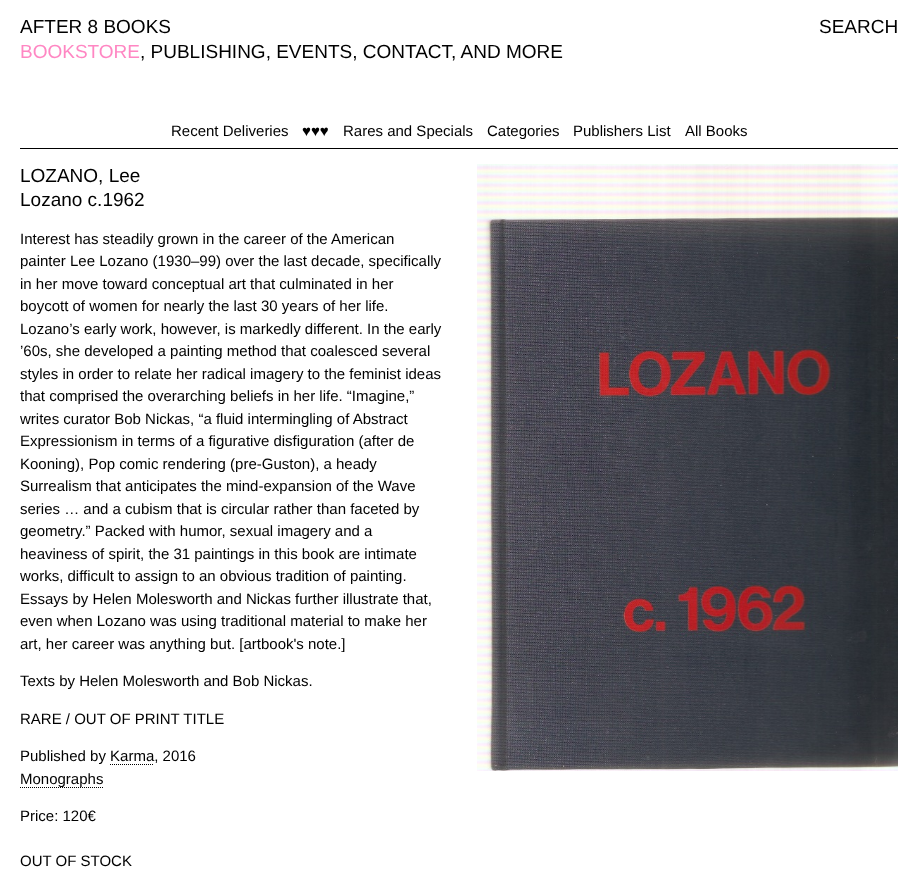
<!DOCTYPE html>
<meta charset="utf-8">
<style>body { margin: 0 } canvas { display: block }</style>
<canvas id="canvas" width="918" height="871"></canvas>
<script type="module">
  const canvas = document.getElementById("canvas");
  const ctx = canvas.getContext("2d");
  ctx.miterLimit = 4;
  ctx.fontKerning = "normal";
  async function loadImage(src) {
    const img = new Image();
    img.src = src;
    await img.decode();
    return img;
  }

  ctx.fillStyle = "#ffffff";
  ctx.fillRect(0, 0, 918, 871);
  ctx.font = "19px Liberation Sans";
  ctx.fillStyle = "#000000";
  ctx.fillText("AFTER 8 BOOKS", 20, 33);
  ctx.fillText("SEARCH", 819, 33);
  ctx.fillStyle = "#ff87c3";
  ctx.fillText("BOOKSTORE", 20, 58);
  ctx.fillStyle = "#000000";
  ctx.fillText(", PUBLISHING, EVENTS, CONTACT, AND MORE", 140, 58);
  ctx.font = "15px Liberation Sans";
  ctx.fillText("Recent Deliveries", 171, 136);
  ctx.fillText("♥♥♥", 302, 136);
  ctx.fillText("Rares and Specials", 343, 136);
  ctx.fillText("Categories", 487, 136);
  ctx.fillText("Publishers List", 573, 136);
  ctx.fillText("All Books", 685, 136);
  ctx.fillRect(20, 148, 878, 1);
  ctx.font = "19px Liberation Sans";
  ctx.fillText("LOZANO, Lee", 20, 182);
  ctx.fillText("Lozano c.1962", 20, 206);
  ctx.font = "15px Liberation Sans";
  ctx.fillText("Interest has steadily grown in the career of the American", 20, 244);
  ctx.fillText("painter Lee Lozano (1930–99) over the last decade, specifically", 20, 266);
  ctx.fillText("in her move toward conceptual art that culminated in her", 20, 289);
  ctx.fillText("boycott of women for nearly the last 30 years of her life.", 20, 311);
  ctx.fillText("Lozano’s early work, however, is markedly different. In the early", 20, 334);
  ctx.fillText("’60s, she developed a painting method that coalesced several", 20, 356);
  ctx.fillText("styles in order to relate her radical imagery to the feminist ideas", 20, 379);
  ctx.fillText("that comprised the overarching beliefs in her life. “Imagine,”", 20, 401);
  ctx.fillText("writes curator Bob Nickas, “a fluid intermingling of Abstract", 20, 424);
  ctx.fillText("Expressionism in terms of a figurative disfiguration (after de", 20, 446);
  ctx.fillText("Kooning), Pop comic rendering (pre-Guston), a heady", 20, 469);
  ctx.fillText("Surrealism that anticipates the mind-expansion of the Wave", 20, 491);
  ctx.fillText("series … and a cubism that is circular rather than faceted by", 20, 514);
  ctx.fillText("geometry.” Packed with humor, sexual imagery and a", 20, 536);
  ctx.fillText("heaviness of spirit, the 31 paintings in this book are intimate", 20, 559);
  ctx.fillText("works, difficult to assign to an obvious tradition of painting.", 20, 581);
  ctx.fillText("Essays by Helen Molesworth and Nickas further illustrate that,", 20, 604);
  ctx.fillText("even when Lozano was using traditional material to make her", 20, 626);
  ctx.fillText("art, her career was anything but. [artbook's note.]", 20, 649);
  ctx.fillText("Texts by Helen Molesworth and Bob Nickas.", 20, 686);
  ctx.fillText("RARE / OUT OF PRINT TITLE", 20, 724);
  ctx.fillText("Published by Karma, 2016", 20, 761);
  ctx.beginPath();
  ctx.moveTo(110, 764.5);
  ctx.lineTo(154, 764.5);
  ctx.strokeStyle = "#000000";
  ctx.setLineDash([1, 1]);
  ctx.stroke();
  ctx.beginPath();
  ctx.moveTo(20, 787.5);
  ctx.lineTo(103, 787.5);
  ctx.stroke();
  ctx.fillText("Monographs", 20, 784);
  ctx.fillText("Price: 120€", 20, 821);
  ctx.fillText("OUT OF STOCK", 20, 866);
  ctx.drawImage(await loadImage("img1.png"), 477, 164, 421, 607);
</script>
